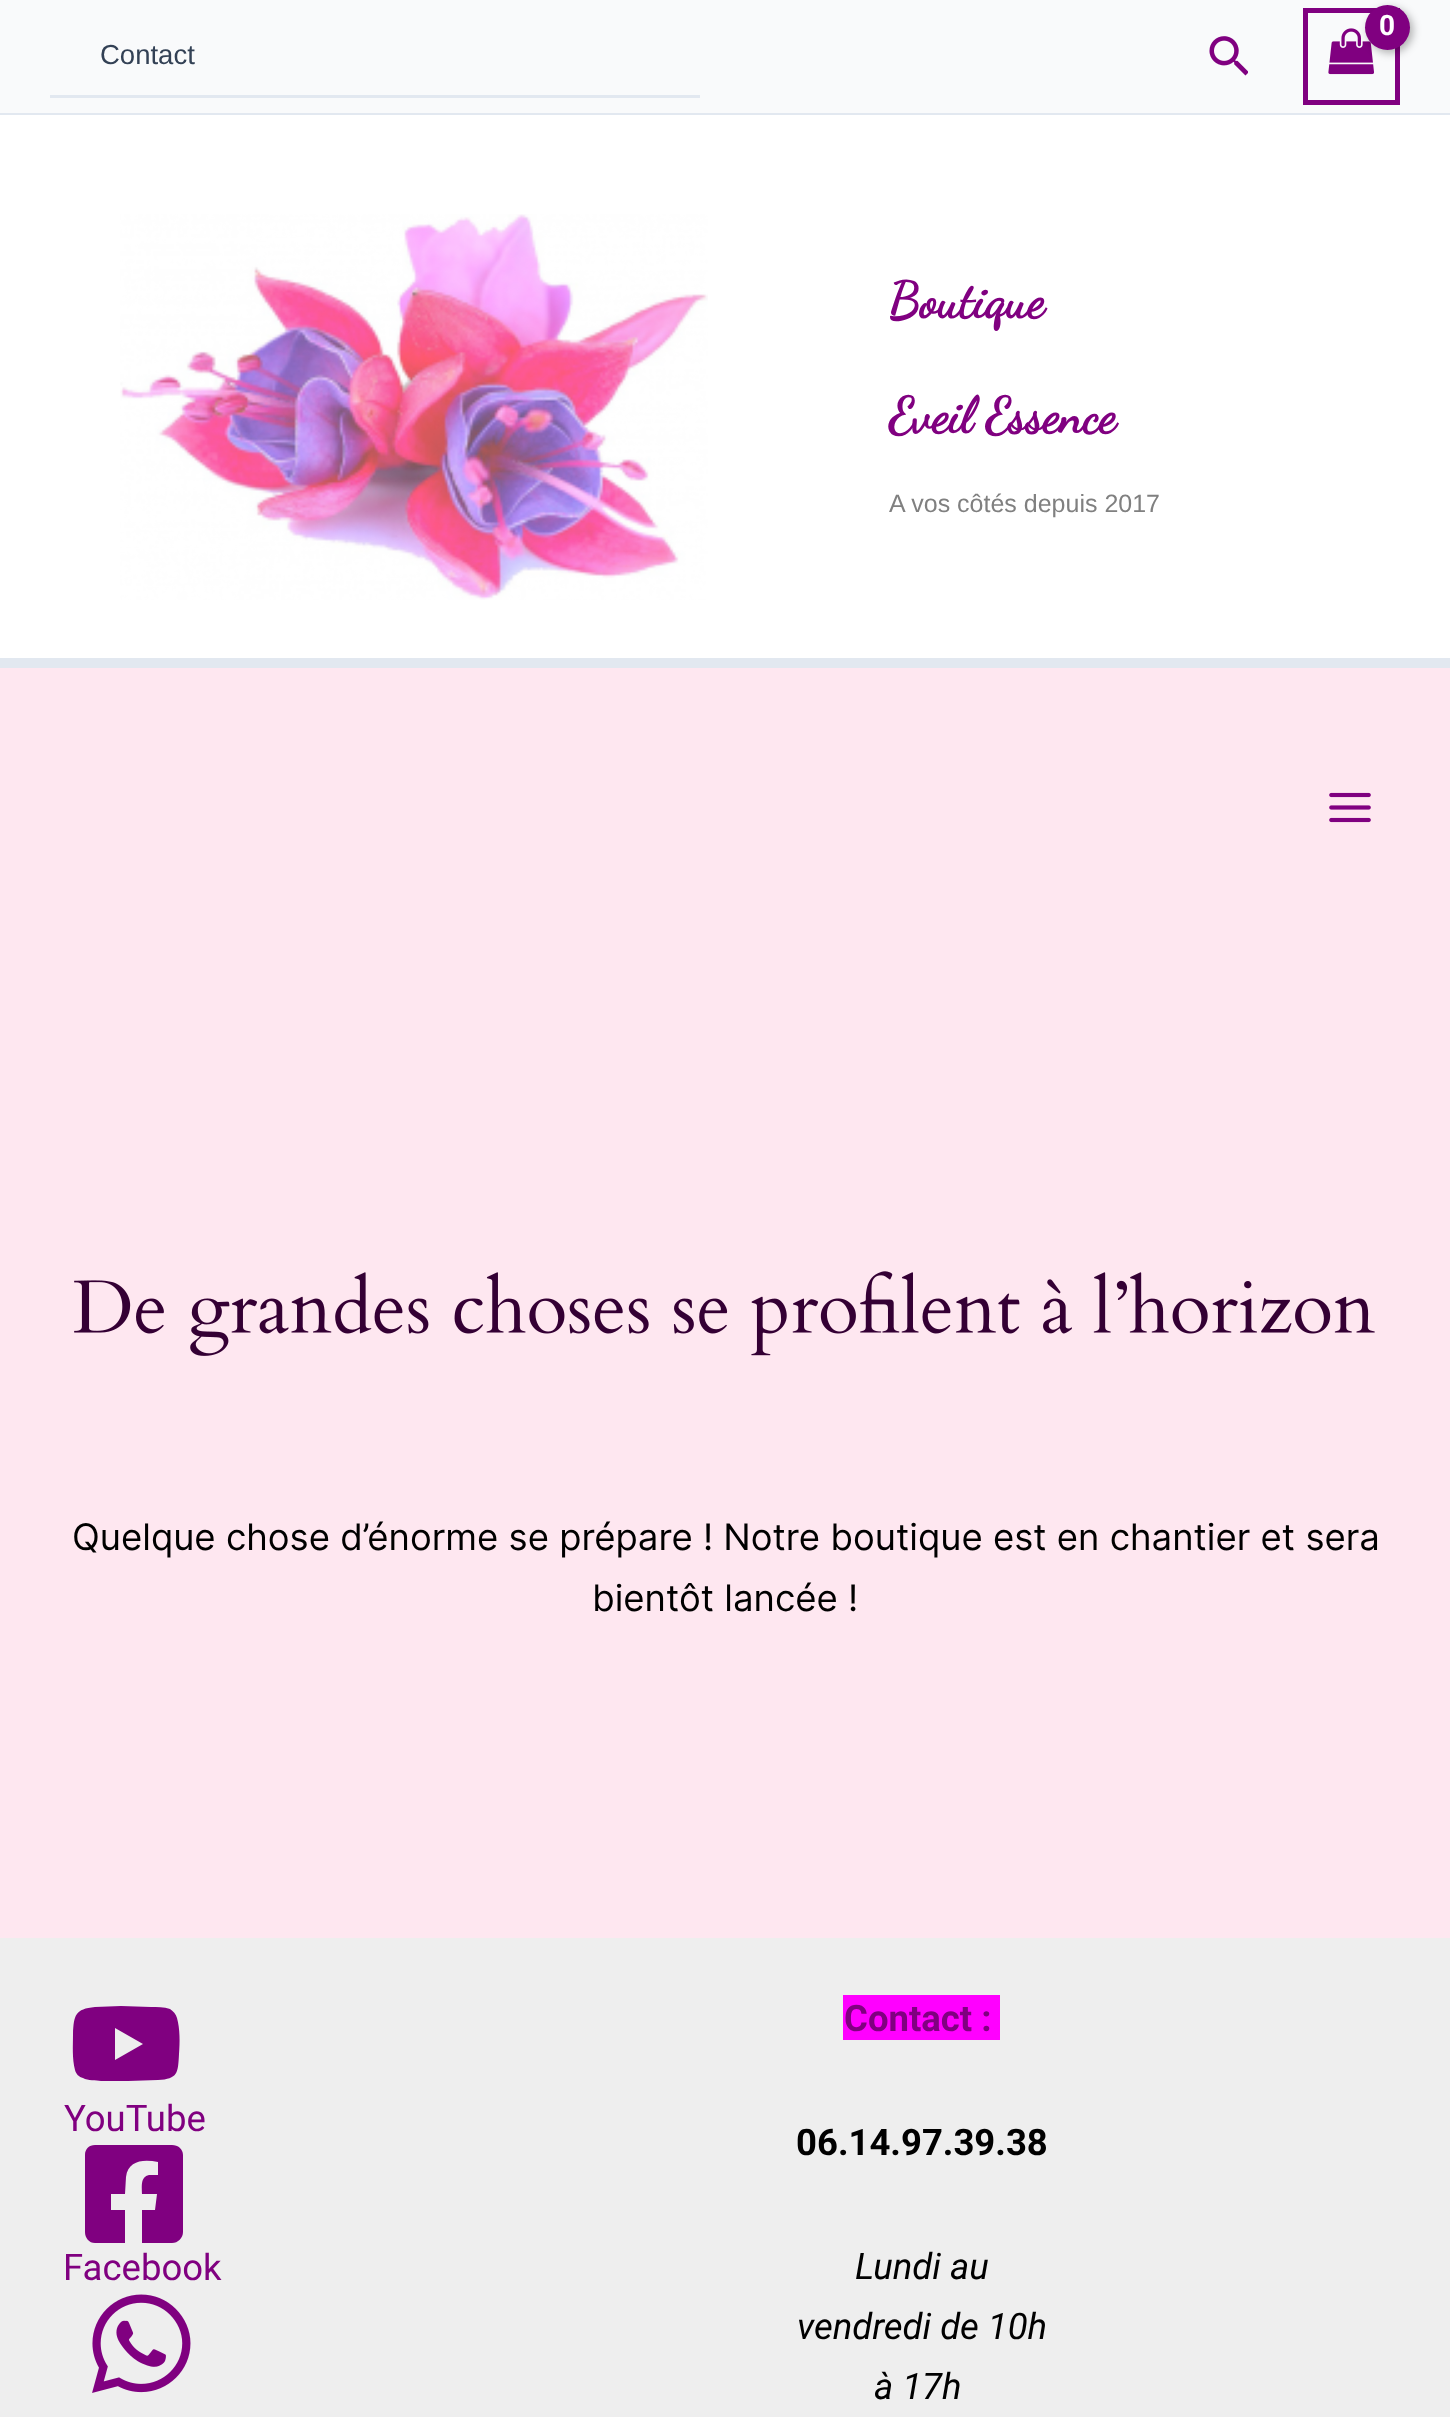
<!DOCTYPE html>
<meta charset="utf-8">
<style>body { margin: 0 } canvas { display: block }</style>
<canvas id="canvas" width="1450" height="2417"></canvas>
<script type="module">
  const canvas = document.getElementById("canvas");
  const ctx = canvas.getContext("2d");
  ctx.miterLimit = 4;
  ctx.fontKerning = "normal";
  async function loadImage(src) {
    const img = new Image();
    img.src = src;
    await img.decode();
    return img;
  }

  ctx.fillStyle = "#fee7f0";
  ctx.fillRect(0, 0, 1450, 2417);
  ctx.fillStyle = "#f9fafb";
  ctx.fillRect(0, 0, 1450, 113);
  ctx.fillStyle = "#e2e8f0";
  ctx.fillRect(0, 113, 1450, 2);
  ctx.strokeStyle = "#800080";
  ctx.lineWidth = 5;
  ctx.strokeRect(1305.5, 10.5, 92, 92);
  ctx.drawImage(await loadImage("img1.png"), 1328, 28, 46, 47);
  ctx.fillStyle = "rgba(0, 0, 0, 0.3)";
  ctx.filter = "blur(4px)";
  ctx.beginPath();
  ctx.roundRect(1368, 8, 45, 45, 22.5);
  ctx.fill();
  ctx.filter = "none";
  ctx.fillStyle = "#800080";
  ctx.beginPath();
  ctx.arc(1387.5, 27.5, 22.5, 0, Math.PI * 2);
  ctx.fill();
  ctx.letterSpacing = "-1px";
  ctx.font = "bold 28px Roboto";
  ctx.fillStyle = "#ffffff";
  ctx.fillText("0", 1379, 35);
  ctx.drawImage(await loadImage("img2.png"), 1209, 36, 39, 40);
  ctx.fillStyle = "#e2e8f0";
  ctx.fillRect(50, 95, 650, 3);
  ctx.letterSpacing = "0px";
  ctx.font = "27.5px Liberation Sans";
  ctx.fillStyle = "#334155";
  ctx.fillText("Contact", 100, 64);
  ctx.fillStyle = "#ffffff";
  ctx.fillRect(0, 115, 1450, 543);
  ctx.fillStyle = "#e2e8f0";
  ctx.fillRect(0, 658, 1450, 10);
  ctx.drawImage(await loadImage("img3.png"), 120, 214, 588, 386);
  ctx.font = "bold 50px Dancing Script";
  ctx.fillStyle = "#800080";
  ctx.fillText("Boutique", 889, 317);
  ctx.fillText("Eveil Essence", 889, 432);
  ctx.font = "25px Liberation Sans";
  ctx.fillStyle = "#808080";
  ctx.fillText("A vos côtés depuis 2017", 889, 512);
  ctx.drawImage(await loadImage("img4.png"), 1329, 792, 42, 31);
  ctx.drawImage(await loadImage("img5.png"), 74, 1271, 1301, 85);
  ctx.font = "36.5px Inter";
  ctx.fillStyle = "#000000";
  ctx.fillText("Quelque chose d’énorme se prépare ! Notre boutique est en chantier et sera", 72, 1550);
  ctx.fillText("bientôt lancée !", 592, 1611);
  ctx.fillStyle = "#eeeeee";
  ctx.fillRect(0, 1938, 1450, 479);
  ctx.fillStyle = "#800080";
  ctx.beginPath();
  ctx.moveTo(177, 2018);
  ctx.bezierCurveTo(176, 2014, 173, 2011, 170, 2009);
  ctx.bezierCurveTo(164, 2007, 157, 2007, 151, 2007);
  ctx.lineTo(121, 2006);
  ctx.lineTo(95, 2007);
  ctx.bezierCurveTo(75, 2009, 74, 2015, 73, 2034);
  ctx.bezierCurveTo(73, 2046, 72, 2058, 75, 2070);
  ctx.bezierCurveTo(76, 2074, 79, 2077, 83, 2078);
  ctx.bezierCurveTo(88, 2081, 96, 2080, 101, 2081);
  ctx.lineTo(128, 2081);
  ctx.lineTo(158, 2080);
  ctx.bezierCurveTo(178, 2079, 178, 2073, 179, 2054);
  ctx.bezierCurveTo(180, 2042, 180, 2029, 177, 2018);
  ctx.closePath();
  ctx.moveTo(115, 2060);
  ctx.lineTo(115, 2028);
  ctx.lineTo(143, 2044);
  ctx.closePath();
  ctx.fill();
  ctx.font = "36.5px Roboto";
  ctx.fillText("YouTube", 64, 2131);
  ctx.beginPath();
  ctx.moveTo(172, 2145);
  ctx.lineTo(95, 2145);
  ctx.bezierCurveTo(89, 2145, 85, 2149, 85, 2155);
  ctx.lineTo(85, 2232);
  ctx.bezierCurveTo(85, 2238, 89, 2243, 95, 2243);
  ctx.lineTo(125, 2243);
  ctx.lineTo(125, 2210);
  ctx.lineTo(111, 2210);
  ctx.lineTo(111, 2194);
  ctx.lineTo(125, 2194);
  ctx.lineTo(126, 2177);
  ctx.bezierCurveTo(128, 2160, 144, 2159, 158, 2162);
  ctx.lineTo(158, 2175);
  ctx.lineTo(149, 2175);
  ctx.bezierCurveTo(140, 2177, 142, 2187, 142, 2194);
  ctx.lineTo(157, 2194);
  ctx.lineTo(155, 2210);
  ctx.lineTo(142, 2210);
  ctx.lineTo(142, 2243);
  ctx.lineTo(172, 2243);
  ctx.bezierCurveTo(178, 2243, 183, 2238, 183, 2232);
  ctx.lineTo(183, 2155);
  ctx.bezierCurveTo(183, 2149, 178, 2145, 172, 2145);
  ctx.closePath();
  ctx.fill();
  ctx.fillText("Facebook", 63, 2280);
  ctx.drawImage(await loadImage("img6.png"), 92, 2294, 99, 99);
  ctx.fillStyle = "#ff00ff";
  ctx.fillRect(843, 1995, 157, 45);
  ctx.font = "bold 36.5px Roboto";
  ctx.fillStyle = "#800080";
  ctx.fillText("Contact :", 844, 2031);
  ctx.fillStyle = "#000000";
  ctx.fillText("06.14.97.39.38", 796, 2155);
  ctx.font = "italic 36.5px Roboto";
  ctx.fillText("Lundi au", 855, 2279);
  ctx.fillText("vendredi de 10h", 797, 2339);
  ctx.fillText("à 17h", 874, 2399);
</script>
